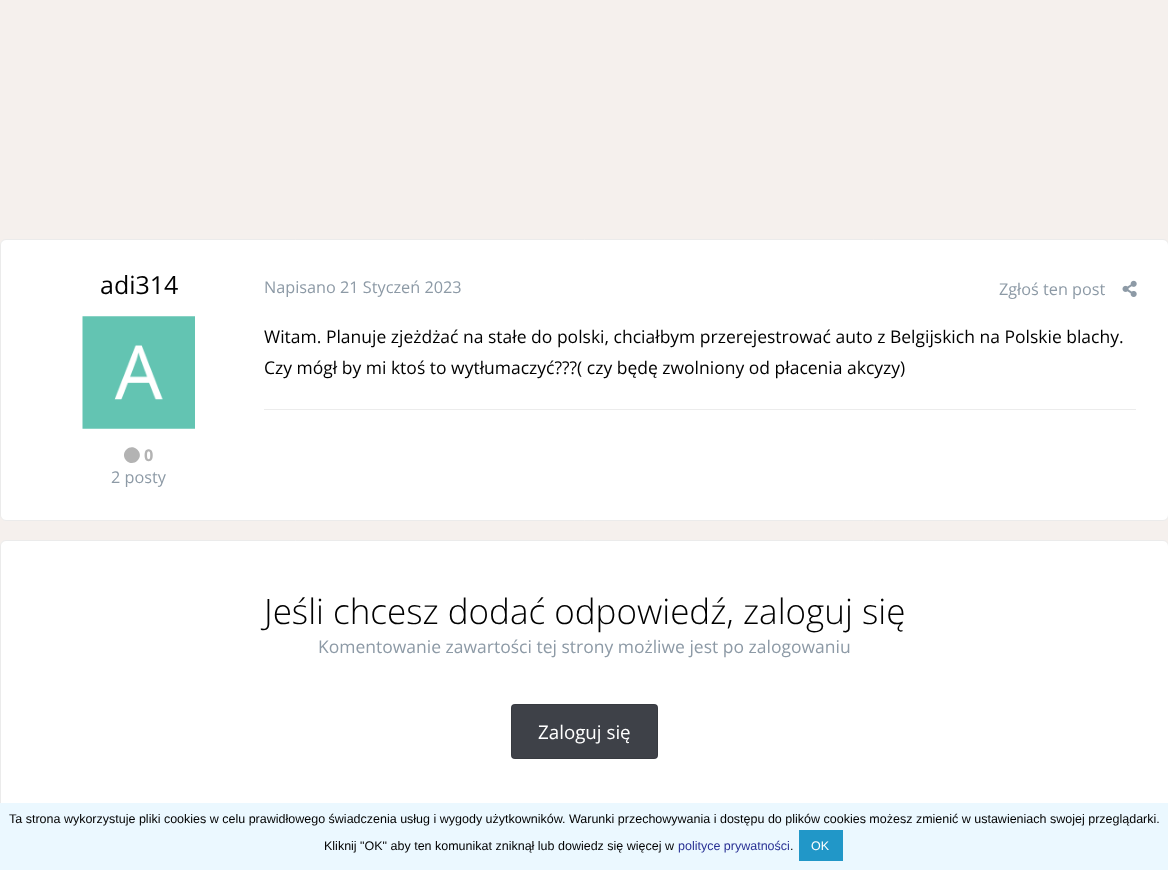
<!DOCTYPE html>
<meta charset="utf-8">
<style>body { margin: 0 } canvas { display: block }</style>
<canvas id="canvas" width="1168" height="870"></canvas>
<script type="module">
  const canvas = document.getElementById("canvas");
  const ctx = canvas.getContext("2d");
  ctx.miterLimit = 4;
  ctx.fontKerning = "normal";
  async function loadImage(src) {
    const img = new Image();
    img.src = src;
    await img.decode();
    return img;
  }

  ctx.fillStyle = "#f5f0ed";
  ctx.fillRect(0, 0, 1168, 870);
  ctx.fillStyle = "#ffffff";
  ctx.beginPath();
  ctx.roundRect(0.5, 239.5, 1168, 281, 5.5);
  ctx.fill();
  ctx.strokeStyle = "#ebebeb";
  ctx.stroke();
  ctx.font = "25px Open Sans";
  ctx.fillStyle = "#000000";
  ctx.fillText("adi314", 100, 294);
  ctx.drawImage(await loadImage("img1.png"), 82, 316, 113, 113);
  ctx.fillStyle = "#b3b3b3";
  ctx.beginPath();
  ctx.moveTo(126.5, 449.5);
  ctx.bezierCurveTo(133.5, 442.5, 145, 453.5, 137.5, 460.5);
  ctx.bezierCurveTo(130, 468, 119, 457, 126.5, 449.5);
  ctx.closePath();
  ctx.fill();
  ctx.font = "bold 16.25px Open Sans";
  ctx.fillText("0", 144, 461);
  ctx.font = "16.25px Open Sans";
  ctx.fillStyle = "#8d9aa6";
  ctx.fillText("2 posty", 111, 483);
  ctx.fillText("Napisano 21 Styczeń 2023", 264, 293);
  ctx.fillText("Zgłoś ten post", 999, 295);
  ctx.drawImage(await loadImage("img2.png"), 1122, 280, 15, 17);
  ctx.font = "17.5px Open Sans";
  ctx.fillStyle = "#000000";
  ctx.fillText("Witam. Planuje zjeżdżać na stałe do polski, chciałbym przerejestrować auto z Belgijskich na Polskie blachy.", 264, 343);
  ctx.fillText("Czy mógł by mi ktoś to wytłumaczyć???( czy będę zwolniony od płacenia akcyzy)", 264, 374);
  ctx.fillStyle = "#ececec";
  ctx.fillRect(264, 409, 872, 1);
  ctx.fillStyle = "#ffffff";
  ctx.beginPath();
  ctx.roundRect(0.5, 540.5, 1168, 269, 5.5);
  ctx.fill();
  ctx.stroke();
  ctx.font = "300 35px Open Sans";
  ctx.fillStyle = "#000000";
  ctx.fillText("Jeśli chcesz dodać odpowiedź, zaloguj się", 264, 624);
  ctx.font = "17.5px Open Sans";
  ctx.fillStyle = "#8d9aa6";
  ctx.fillText("Komentowanie zawartości tej strony możliwe jest po zalogowaniu", 318, 653);
  ctx.fillStyle = "#3e4148";
  ctx.beginPath();
  ctx.roundRect(511, 704, 147, 55, 4);
  ctx.fill();
  ctx.beginPath();
  ctx.roundRect(511.5, 704.5, 146, 54, 3.5);
  ctx.strokeStyle = "rgba(0, 0, 0, 0.1)";
  ctx.stroke();
  ctx.font = "18.75px Open Sans";
  ctx.fillStyle = "#ffffff";
  ctx.fillText("Zaloguj się", 538, 739);
  ctx.fillStyle = "#ebf8ff";
  ctx.fillRect(0, 803, 1168, 67);
  ctx.font = "12.5px Liberation Sans";
  ctx.fillStyle = "#000000";
  ctx.fillText("Ta strona wykorzystuje pliki cookies w celu prawidłowego świadczenia usług i wygody użytkowników. Warunki przechowywania i dostępu do plików cookies możesz zmienić w ustawieniach swojej przeglądarki.", 9, 823);
  ctx.fillText("Kliknij \"OK\" aby ten komunikat zniknął lub dowiedz się więcej w", 324, 850);
  ctx.fillStyle = "#293194";
  ctx.fillText("polityce prywatności", 678, 850);
  ctx.fillStyle = "#000000";
  ctx.fillText(".", 790, 850);
  ctx.fillStyle = "#2197c8";
  ctx.fillRect(799, 830, 44, 31);
  ctx.fillStyle = "#ffffff";
  ctx.fillText("OK", 811, 850);
</script>
